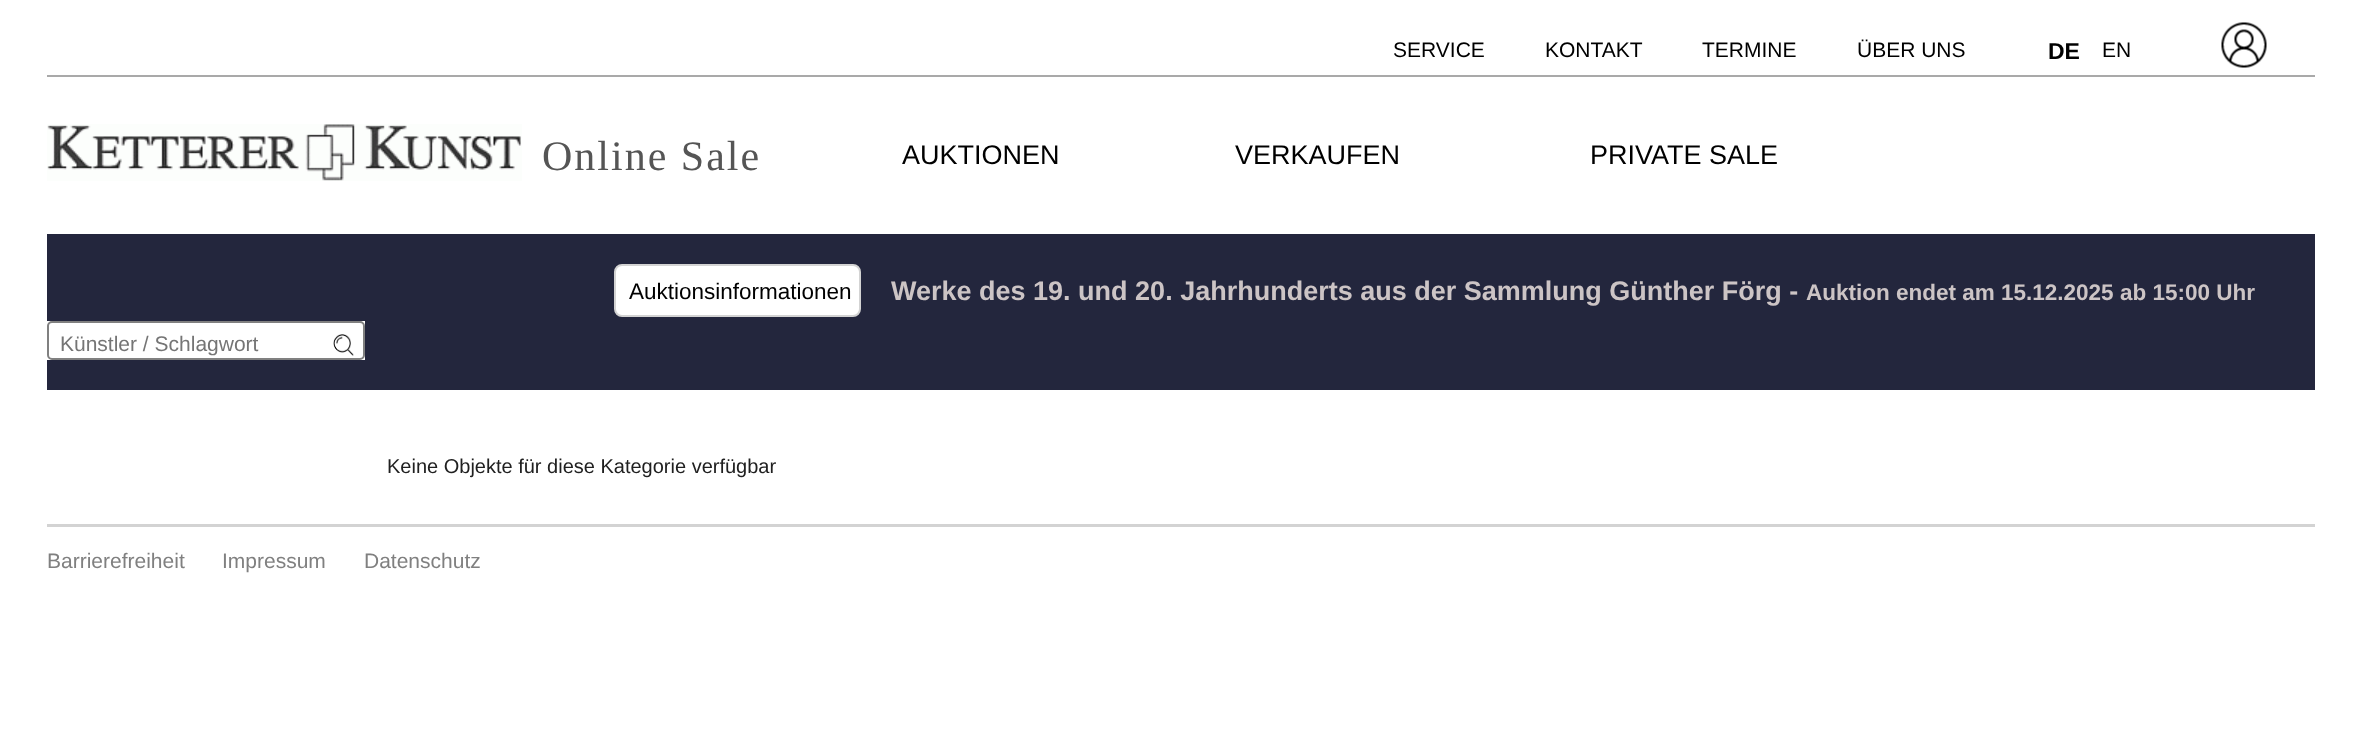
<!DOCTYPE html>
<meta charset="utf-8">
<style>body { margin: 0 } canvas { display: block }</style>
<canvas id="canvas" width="2360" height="755"></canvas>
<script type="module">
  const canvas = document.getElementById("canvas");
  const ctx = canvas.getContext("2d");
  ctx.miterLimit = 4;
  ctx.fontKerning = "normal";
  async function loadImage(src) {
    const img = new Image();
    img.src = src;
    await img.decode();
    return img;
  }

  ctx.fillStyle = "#ffffff";
  ctx.fillRect(0, 0, 2360, 755);
  ctx.fillStyle = "#a9a9a9";
  ctx.fillRect(47, 75, 2268, 2);
  ctx.font = "21px Liberation Sans";
  ctx.fillStyle = "#000000";
  ctx.fillText("SERVICE", 1393, 57);
  ctx.fillText("KONTAKT", 1545, 57);
  ctx.fillText("TERMINE", 1702, 57);
  ctx.fillText("ÜBER UNS", 1857, 57);
  ctx.font = "bold 23px Liberation Sans";
  ctx.fillText("DE", 2048, 59);
  ctx.font = "21px Liberation Sans";
  ctx.fillText("EN", 2102, 57);
  ctx.drawImage(await loadImage("img1.png"), 2221, 22, 46, 46);
  ctx.drawImage(await loadImage("img2.png"), 47, 124, 475, 57);
  ctx.letterSpacing = "2px";
  ctx.font = "42px Liberation Serif";
  ctx.fillStyle = "#555555";
  ctx.fillText("Online Sale", 542, 170);
  ctx.letterSpacing = "0px";
  ctx.font = "27px Liberation Sans";
  ctx.fillStyle = "#000000";
  ctx.fillText("AUKTIONEN", 902, 164);
  ctx.fillText("VERKAUFEN", 1235, 164);
  ctx.fillText("PRIVATE SALE", 1590, 164);
  ctx.fillStyle = "#23263d";
  ctx.fillRect(47, 234, 2268, 156);
  ctx.fillStyle = "#ffffff";
  ctx.beginPath();
  ctx.roundRect(615, 265, 245, 51, 7);
  ctx.fill();
  ctx.strokeStyle = "#d3d3d3";
  ctx.lineWidth = 2;
  ctx.stroke();
  ctx.font = "22.5px Liberation Sans";
  ctx.fillStyle = "#000000";
  ctx.fillText("Auktionsinformationen", 629, 299);
  ctx.font = "bold 27px Liberation Sans";
  ctx.fillStyle = "#ccc4c5";
  ctx.fillText("Werke des 19. und 20. Jahrhunderts aus der Sammlung Günther Förg -", 891, 300);
  ctx.font = "bold 22.5px Liberation Sans";
  ctx.fillText("Auktion endet am 15.12.2025 ab 15:00 Uhr", 1806, 300);
  ctx.fillStyle = "#ffffff";
  ctx.fillRect(47, 321, 318, 39);
  ctx.beginPath();
  ctx.roundRect(48, 322, 316, 37, 4);
  ctx.strokeStyle = "#808080";
  ctx.stroke();
  ctx.font = "21px Liberation Sans";
  ctx.fillStyle = "#757575";
  ctx.fillText("Künstler / Schlagwort", 60, 351);
  ctx.drawImage(await loadImage("img3.png"), 333, 334, 21, 22);
  ctx.font = "20px Liberation Sans";
  ctx.fillStyle = "#202020";
  ctx.fillText("Keine Objekte für diese Kategorie verfügbar", 387, 473);
  ctx.fillStyle = "#d3d3d3";
  ctx.fillRect(47, 524, 2268, 3);
  ctx.font = "21px Liberation Sans";
  ctx.fillStyle = "#808080";
  ctx.fillText("Barrierefreiheit", 47, 568);
  ctx.fillText("Impressum", 222, 568);
  ctx.fillText("Datenschutz", 364, 568);
</script>
